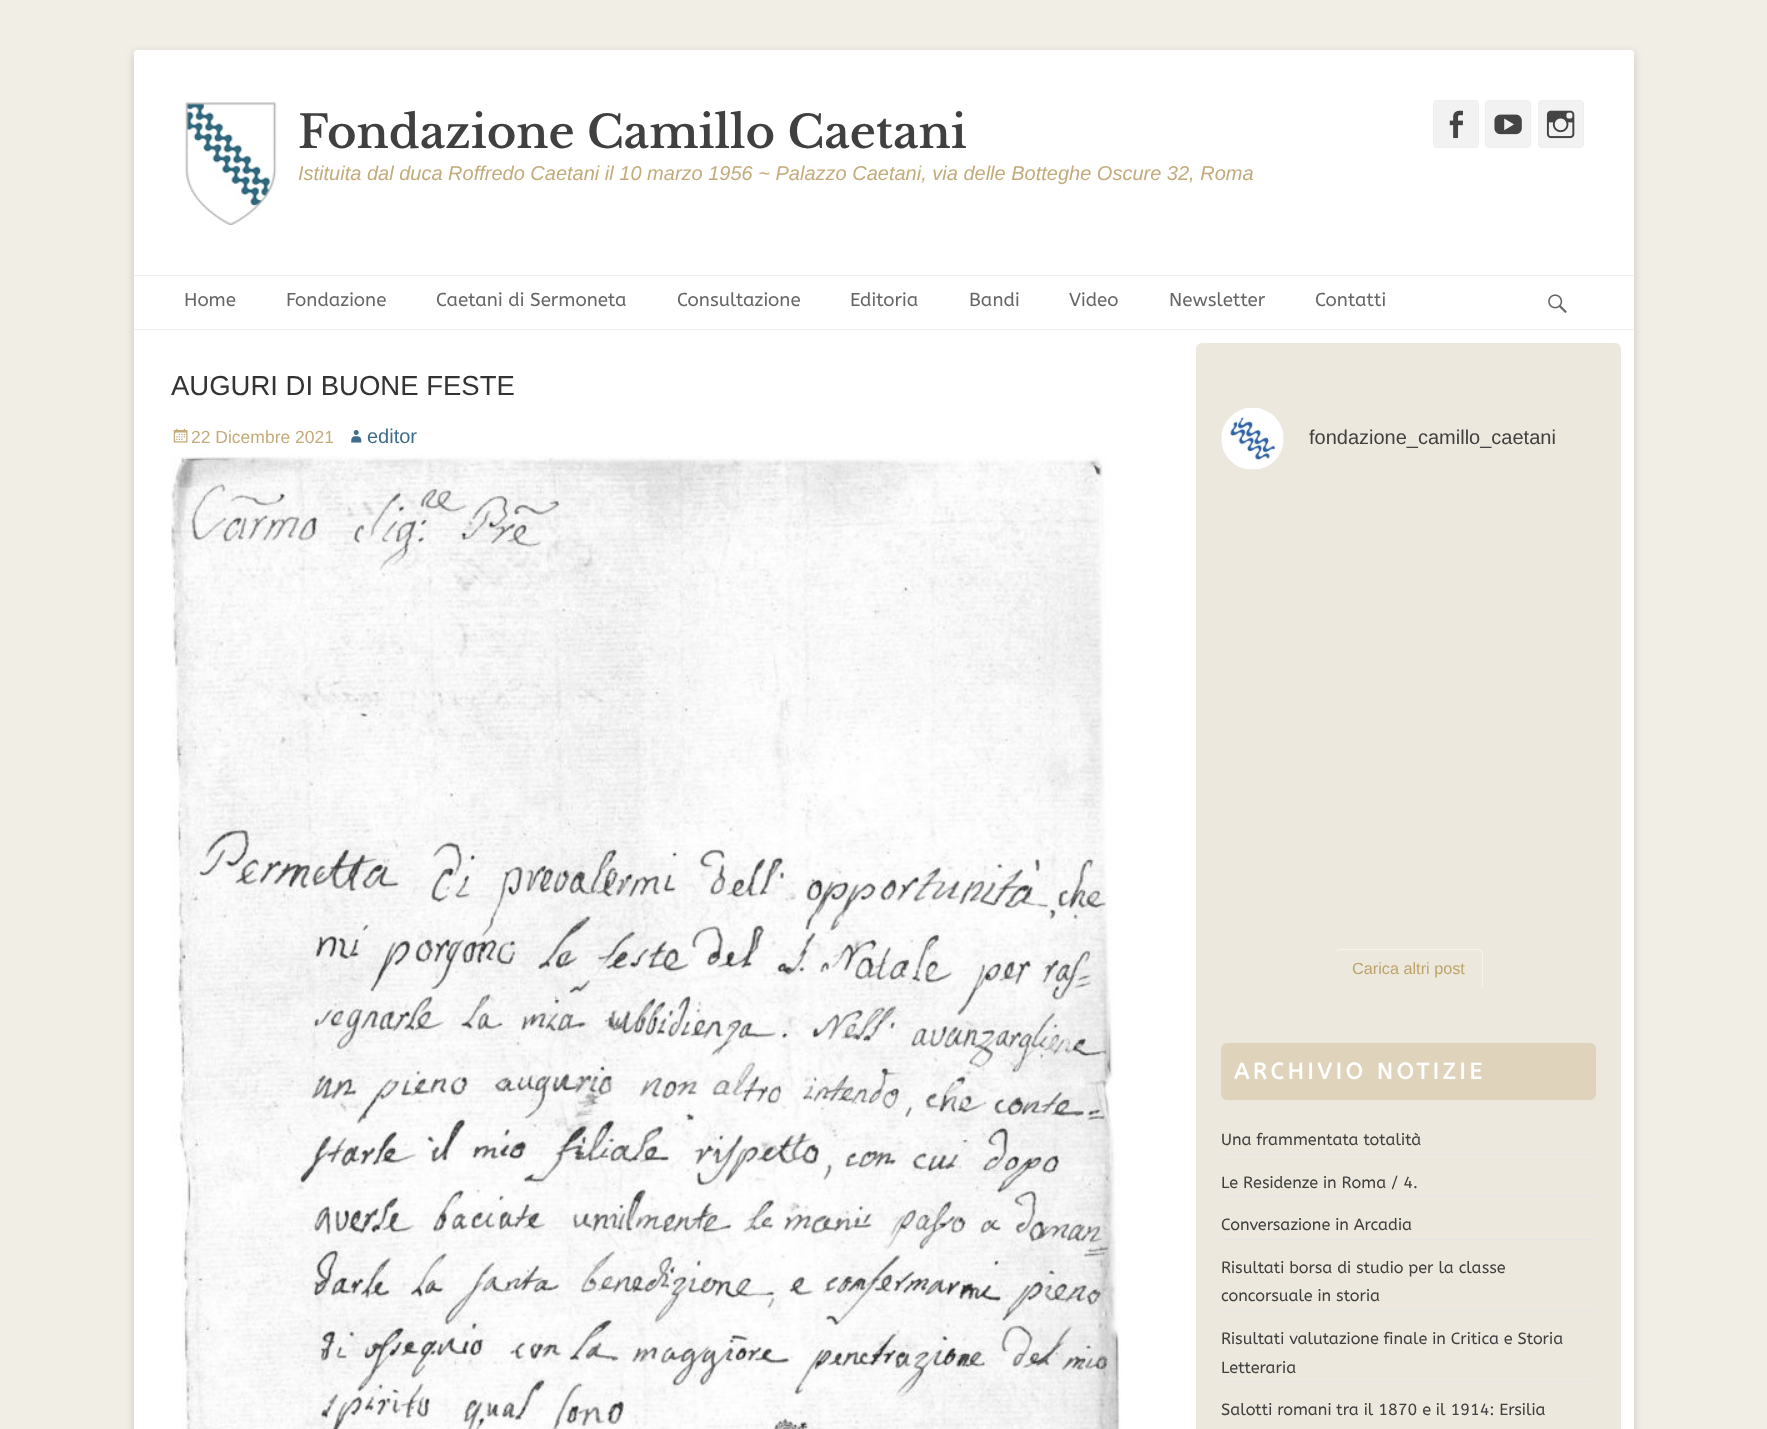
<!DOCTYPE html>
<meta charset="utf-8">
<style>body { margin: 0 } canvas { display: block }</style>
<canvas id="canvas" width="1767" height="1429"></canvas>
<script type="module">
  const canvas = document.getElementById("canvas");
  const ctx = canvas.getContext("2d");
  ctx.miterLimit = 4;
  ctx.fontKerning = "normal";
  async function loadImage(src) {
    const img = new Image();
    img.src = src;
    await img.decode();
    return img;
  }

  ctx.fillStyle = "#f1eee6";
  ctx.fillRect(0, 0, 1767, 1429);
  ctx.fillStyle = "rgba(100, 100, 100, 0.3)";
  ctx.filter = "blur(4px)";
  ctx.beginPath();
  ctx.roundRect(134, 53, 1500, 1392, 4);
  ctx.fill();
  ctx.filter = "none";
  ctx.fillStyle = "#ffffff";
  ctx.beginPath();
  ctx.roundRect(134, 50, 1500, 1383, 4);
  ctx.fill();
  ctx.drawImage(await loadImage("img1.png"), 184, 102, 93, 123);
  ctx.font = "600 45px Libre Baskerville";
  ctx.fillStyle = "#404040";
  ctx.fillText("Fondazione Camillo Caetani", 298, 148);
  ctx.font = "italic 20px Liberation Sans";
  ctx.fillStyle = "#c3ab7b";
  ctx.fillText("Istituita dal duca Roffredo Caetani il 10 marzo 1956 ~ Palazzo Caetani, via delle Botteghe Oscure 32, Roma", 298, 180);
  ctx.fillStyle = "#f2f2f2";
  ctx.beginPath();
  ctx.roundRect(1433.5, 100.5, 45, 47, 3.5);
  ctx.fill();
  ctx.strokeStyle = "#eeeeee";
  ctx.stroke();
  ctx.drawImage(await loadImage("img2.png"), 1449, 110, 14, 29);
  ctx.beginPath();
  ctx.roundRect(1485.5, 100.5, 45, 47, 3.5);
  ctx.fill();
  ctx.stroke();
  ctx.drawImage(await loadImage("img3.png"), 1494, 114, 28, 21);
  ctx.beginPath();
  ctx.roundRect(1538.5, 100.5, 45, 47, 3.5);
  ctx.fill();
  ctx.stroke();
  ctx.drawImage(await loadImage("img4.png"), 1546, 110, 29, 29);
  ctx.fillStyle = "#eeeeee";
  ctx.fillRect(134, 275, 1500, 1);
  ctx.fillRect(134, 329, 1500, 1);
  ctx.font = "18.75px ABeeZee";
  ctx.fillStyle = "#666666";
  ctx.fillText("Home", 184, 306);
  ctx.fillText("Fondazione", 286, 306);
  ctx.fillText("Caetani di Sermoneta", 436, 306);
  ctx.fillText("Consultazione", 677, 306);
  ctx.fillText("Editoria", 850, 306);
  ctx.fillText("Bandi", 969, 306);
  ctx.fillText("Video", 1069, 306);
  ctx.fillText("Newsletter", 1169, 306);
  ctx.fillText("Contatti", 1315, 306);
  ctx.drawImage(await loadImage("img5.png"), 1548, 294, 19, 19);
  ctx.font = "27.5px Liberation Sans";
  ctx.fillStyle = "#333333";
  ctx.fillText("AUGURI DI BUONE FESTE", 171, 395);
  ctx.drawImage(await loadImage("img6.png"), 173, 428, 15, 15);
  ctx.font = "17.5px Liberation Sans";
  ctx.fillStyle = "#c3ab7b";
  ctx.fillText("22 Dicembre 2021", 191, 443);
  ctx.drawImage(await loadImage("img7.png"), 351, 430, 11, 13);
  ctx.font = "20px Liberation Sans";
  ctx.fillStyle = "#3e6c8a";
  ctx.fillText("editor", 367, 443);
  ctx.drawImage(await loadImage("img8.png"), 171, 455, 950, 974);
  ctx.fillStyle = "#ece8dd";
  ctx.beginPath();
  ctx.roundRect(1196, 343, 425, 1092, 6);
  ctx.fill();
  ctx.drawImage(await loadImage("img9.png"), 1221, 407, 63, 63);
  ctx.fillStyle = "#404040";
  ctx.fillText("fondazione_camillo_caetani", 1309, 444);
  ctx.fillStyle = "#f6f4ee";
  ctx.beginPath();
  ctx.moveTo(1340, 950);
  ctx.lineTo(1478, 950);
  ctx.bezierCurveTo(1480, 950, 1482, 952, 1482, 955);
  ctx.lineTo(1482, 986);
  ctx.lineTo(1481, 989);
  ctx.bezierCurveTo(1482, 988, 1483, 986, 1483, 985);
  ctx.lineTo(1483, 954);
  ctx.bezierCurveTo(1483, 951, 1481, 949, 1478, 949);
  ctx.lineTo(1340, 949);
  ctx.bezierCurveTo(1337, 949, 1335, 951, 1335, 954);
  ctx.lineTo(1335, 955);
  ctx.bezierCurveTo(1335, 952, 1337, 950, 1340, 950);
  ctx.closePath();
  ctx.fill();
  ctx.font = "16.25px Liberation Sans";
  ctx.fillStyle = "#bda46a";
  ctx.fillText("Carica altri post", 1352, 974);
  ctx.fillStyle = "#dfd4bb";
  ctx.beginPath();
  ctx.roundRect(1221, 1043, 375, 57, 6);
  ctx.fill();
  ctx.letterSpacing = "3.75px";
  ctx.font = "bold 22.5px ABeeZee";
  ctx.fillStyle = "#ffffff";
  ctx.fillText("ARCHIVIO NOTIZIE", 1234, 1079);
  ctx.fillStyle = "#e4e5e6";
  ctx.fillRect(1221, 1154, 375, 1);
  ctx.letterSpacing = "0px";
  ctx.font = "16.25px ABeeZee";
  ctx.fillStyle = "#404040";
  ctx.fillText("Una frammentata totalità", 1221, 1145);
  ctx.fillStyle = "#e4e5e6";
  ctx.fillRect(1221, 1196, 375, 1);
  ctx.fillStyle = "#404040";
  ctx.fillText("Le Residenze in Roma / 4.", 1221, 1188);
  ctx.fillStyle = "#e4e5e6";
  ctx.fillRect(1221, 1239, 375, 1);
  ctx.fillStyle = "#404040";
  ctx.fillText("Conversazione in Arcadia", 1221, 1230);
  ctx.fillStyle = "#e4e5e6";
  ctx.fillRect(1221, 1310, 375, 1);
  ctx.fillStyle = "#404040";
  ctx.fillText("Risultati borsa di studio per la classe", 1221, 1273);
  ctx.fillText("concorsuale in storia", 1221, 1301);
  ctx.fillStyle = "#e4e5e6";
  ctx.fillRect(1221, 1381, 375, 1);
  ctx.fillStyle = "#404040";
  ctx.fillText("Risultati valutazione finale in Critica e Storia", 1221, 1344);
  ctx.fillText("Letteraria", 1221, 1373);
  ctx.fillText("Salotti romani tra il 1870 e il 1914: Ersilia", 1221, 1415);
</script>
